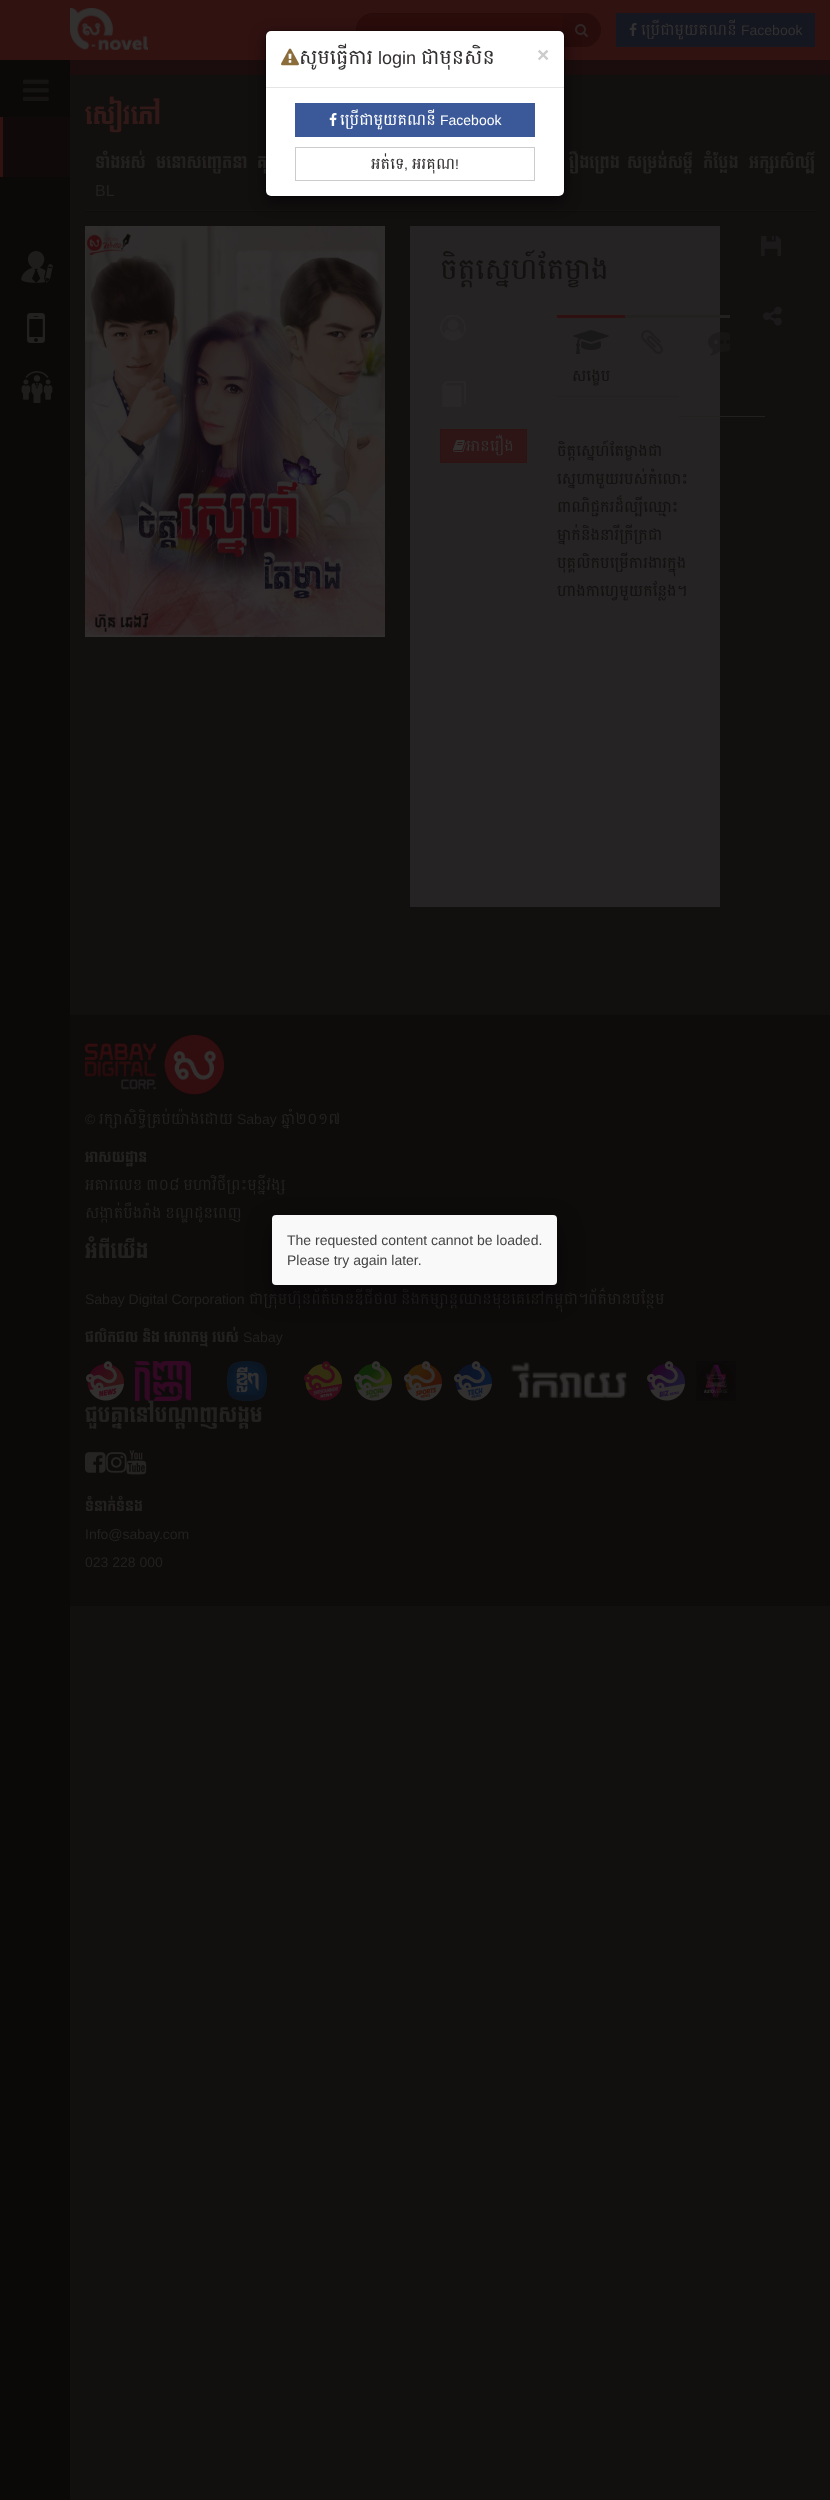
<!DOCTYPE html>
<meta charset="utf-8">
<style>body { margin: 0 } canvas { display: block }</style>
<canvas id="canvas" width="830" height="2500"></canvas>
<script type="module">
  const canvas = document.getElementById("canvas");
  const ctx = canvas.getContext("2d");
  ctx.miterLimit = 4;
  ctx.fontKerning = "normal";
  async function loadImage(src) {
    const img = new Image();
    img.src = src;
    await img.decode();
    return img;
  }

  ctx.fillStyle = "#120f0f";
  ctx.fillRect(0, 0, 830, 2500);
  ctx.fillStyle = "#301211";
  ctx.fillRect(0, 0, 830, 60);
  ctx.drawImage(await loadImage("img1.png"), 70, 8, 78, 42);
  ctx.fillStyle = "#2a0c0b";
  ctx.beginPath();
  ctx.roundRect(356.5, 13.5, 206, 33, [16.5, 0, 0, 16.5]);
  ctx.fill();
  ctx.strokeStyle = "#260c0b";
  ctx.stroke();
  ctx.fillStyle = "#260c0b";
  ctx.beginPath();
  ctx.roundRect(562, 13, 39, 34, [0, 17, 17, 0]);
  ctx.fill();
  ctx.drawImage(await loadImage("img2.png"), 575, 24, 13, 13);
  ctx.fillStyle = "#141620";
  ctx.fillRect(616, 13, 199, 34);
  ctx.drawImage(await loadImage("img3.png"), 629, 23, 8, 13);
  ctx.font = "14px Battambang";
  ctx.fillStyle = "#333030";
  ctx.fillText("ប្រើជាមួយគណនី", 641, 35);
  ctx.font = "14px Liberation Sans";
  ctx.fillText("Facebook", 741, 35);
  ctx.fillStyle = "#1b0d0e";
  ctx.fillRect(70, 60, 760, 15);
  ctx.fillStyle = "#0e0c0c";
  ctx.fillRect(85, 211, 730, 1);
  ctx.fillStyle = "#151212";
  ctx.fillRect(85, 210, 730, 1);
  ctx.fillStyle = "rgba(0, 0, 0, 0.5)";
  ctx.filter = "blur(7.5px)";
  ctx.beginPath();
  ctx.roundRect(265, 35, 300, 167, 6);
  ctx.fill();
  ctx.filter = "none";
  ctx.font = "16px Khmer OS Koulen";
  ctx.fillStyle = "#232020";
  ctx.fillText("គុ", 257, 168);
  ctx.fillStyle = "#ffffff";
  ctx.beginPath();
  ctx.roundRect(266, 31, 298, 165, 5);
  ctx.fill();
  ctx.fillStyle = "#232020";
  ctx.fillText("ឿងព្រេង", 569, 168);
  ctx.beginPath();
  ctx.roundRect(265.5, 30.5, 299, 166, 5.5);
  ctx.strokeStyle = "rgba(0, 0, 0, 0.2)";
  ctx.stroke();
  ctx.fillStyle = "#e5e5e5";
  ctx.fillRect(266, 87, 298, 1);
  ctx.drawImage(await loadImage("img4.png"), 281, 48, 18, 18);
  ctx.font = "18px Battambang";
  ctx.fillStyle = "#333030";
  ctx.fillText("សូមធ្វើការ", 299, 64);
  ctx.font = "18px Liberation Sans";
  ctx.fillText("login", 378, 64);
  ctx.font = "18px Battambang";
  ctx.fillText("ជាមុនសិន", 421, 64);
  ctx.font = "bold 21px Liberation Sans";
  ctx.fillStyle = "#cccccc";
  ctx.fillText("×", 537, 62);
  ctx.fillStyle = "#3b5998";
  ctx.fillRect(295, 103, 240, 34);
  ctx.drawImage(await loadImage("img5.png"), 329, 113, 8, 13);
  ctx.font = "14px Battambang";
  ctx.fillStyle = "#ffffff";
  ctx.fillText("ប្រើជាមួយគណនី", 340, 125);
  ctx.font = "14px Liberation Sans";
  ctx.fillText("Facebook", 440, 125);
  ctx.strokeStyle = "#cccccc";
  ctx.strokeRect(295.5, 147.5, 239, 33);
  ctx.font = "14px Battambang";
  ctx.fillStyle = "#333030";
  ctx.fillText("អត់ទេ", 371, 169);
  ctx.font = "14px Liberation Sans";
  ctx.fillText(",", 404, 169);
  ctx.font = "14px Battambang";
  ctx.fillText("អរគុណ", 412, 169);
  ctx.font = "14px Liberation Sans";
  ctx.fillText("!", 455, 169);
  ctx.fillStyle = "#0b0808";
  ctx.fillRect(0, 60, 70, 2440);
  ctx.drawImage(await loadImage("img6.png"), 23, 79, 26, 22);
  ctx.fillStyle = "#100909";
  ctx.fillRect(3, 117, 67, 60);
  ctx.fillStyle = "#301211";
  ctx.fillRect(0, 117, 3, 60);
  ctx.drawImage(await loadImage("img7.png"), 21, 251, 32, 32);
  ctx.drawImage(await loadImage("img8.png"), 27, 313, 18, 30);
  ctx.drawImage(await loadImage("img9.png"), 21, 371, 32, 32);
  ctx.font = "24px Khmer OS Koulen";
  ctx.fillStyle = "#311918";
  ctx.fillText("សៀវភៅ", 85, 124);
  ctx.font = "16px Khmer OS Koulen";
  ctx.fillStyle = "#232020";
  ctx.fillText("ទាំងអស់", 95, 168);
  ctx.fillText("មនោសញ្ចេតនា", 156, 168);
  ctx.fillText("សម្រង់សម្ដី", 627, 168);
  ctx.fillText("កំប្លែង", 703, 168);
  ctx.fillText("អក្សរសិល្បិ៍", 749, 168);
  ctx.font = "16px Liberation Sans";
  ctx.fillText("BL", 95, 196);
  ctx.drawImage(await loadImage("img10.png"), 85, 226, 300, 411);
  ctx.fillStyle = "#252323";
  ctx.fillRect(410, 226, 310, 681);
  ctx.font = "26px Battambang";
  ctx.fillStyle = "#131010";
  ctx.fillText("ចិត្តស្នេហ៍តែម្ខាង", 440, 279);
  ctx.drawImage(await loadImage("img11.png"), 761, 236, 21, 21);
  ctx.drawImage(await loadImage("img12.png"), 763, 306, 19, 20);
  ctx.drawImage(await loadImage("img13.png"), 440, 314, 26, 27);
  ctx.drawImage(await loadImage("img14.png"), 442, 381, 24, 26);
  ctx.fillStyle = "#2d1515";
  ctx.beginPath();
  ctx.rect(440.5, 429.5, 86, 33);
  ctx.fill();
  ctx.strokeStyle = "#2c1211";
  ctx.stroke();
  ctx.drawImage(await loadImage("img15.png"), 453, 440, 13, 12);
  ctx.font = "14px Battambang";
  ctx.fillStyle = "#333030";
  ctx.fillText("អានរឿង", 466, 451);
  ctx.fillStyle = "#232020";
  ctx.fillRect(625, 315, 105, 3);
  ctx.drawImage(await loadImage("img16.png"), 641, 330, 22, 24);
  ctx.fillStyle = "#2f1011";
  ctx.fillRect(557, 315, 68, 3);
  ctx.fillStyle = "#232020";
  ctx.fillRect(557, 396, 122, 1);
  ctx.drawImage(await loadImage("img17.png"), 573, 330, 36, 24);
  ctx.fillStyle = "#131010";
  ctx.fillText("សង្ខេប", 572, 381);
  ctx.fillStyle = "#232020";
  ctx.fillRect(679, 416, 86, 1);
  ctx.drawImage(await loadImage("img18.png"), 708, 332, 22, 24);
  ctx.fillStyle = "#131010";
  ctx.fillText("ចិត្តស្នេហ៍តែម្ខាងជា", 557, 456);
  ctx.fillText("ស្នេហាមួយរបស់កំលោះ", 557, 484);
  ctx.fillText("ពាណិជ្ជករដ៏ល្បីឈ្មោះ", 557, 512);
  ctx.fillText("ម្នាក់និងនារីក្រីក្រជា", 557, 540);
  ctx.fillText("បុគ្គលិកបម្រើការងារក្នុង", 557, 568);
  ctx.fillText("ហាងកាហ្វេមួយកន្លែង។", 557, 596);
  ctx.fillStyle = "#0e0b0b";
  ctx.fillRect(70, 1015, 760, 591);
  ctx.drawImage(await loadImage("img19.png"), 85, 1035, 139, 60);
  ctx.font = "14px Liberation Sans";
  ctx.fillStyle = "#232020";
  ctx.fillText("©", 85, 1124);
  ctx.font = "14px Battambang";
  ctx.fillText("រក្សាសិទ្ធិគ្រប់យ៉ាងដោយ", 99, 1124);
  ctx.font = "14px Liberation Sans";
  ctx.fillText("Sabay", 237, 1124);
  ctx.font = "14px Battambang";
  ctx.fillText("ឆ្នាំ២០១៧", 281, 1124);
  ctx.font = "14px Khmer OS Koulen";
  ctx.fillText("អាសយដ្ឋាន", 85, 1162);
  ctx.font = "14px Battambang";
  ctx.fillText("អគារលេខ ៣០៨ មហាវិថីព្រះមុន្នីវង្ស", 85, 1190);
  ctx.fillText("សង្កាត់បឹងរាំង ខណ្ឌដូនពេញ", 85, 1218);
  ctx.font = "20px Khmer OS Koulen";
  ctx.fillText("អំពីយើង", 85, 1258);
  ctx.font = "14px Liberation Sans";
  ctx.fillText("Sabay Digital Corporation", 85, 1304);
  ctx.font = "14px Battambang";
  ctx.fillText("ជាក្រុមហ៊ុនព័ត៌មានឌីជីថល និងកម្សាន្តឈានមុខគេនៅកម្ពុជា។", 249, 1304);
  ctx.fillText("ព័ត៌មានបន្ថែម", 588, 1304);
  ctx.font = "14px Khmer OS Koulen";
  ctx.fillText("ផលិតផល និង សេវាកម្ម របស់", 85, 1342);
  ctx.font = "14px Liberation Sans";
  ctx.fillText("Sabay", 243, 1342);
  ctx.drawImage(await loadImage("img20.png"), 86, 1361, 38, 40);
  ctx.drawImage(await loadImage("img21.png"), 135, 1361, 56, 40);
  ctx.drawImage(await loadImage("img22.png"), 227, 1361, 40, 40);
  ctx.drawImage(await loadImage("img23.png"), 304, 1361, 38, 40);
  ctx.drawImage(await loadImage("img24.png"), 354, 1361, 38, 40);
  ctx.drawImage(await loadImage("img25.png"), 404, 1361, 38, 40);
  ctx.drawImage(await loadImage("img26.png"), 454, 1361, 38, 40);
  ctx.drawImage(await loadImage("img27.png"), 511, 1362, 116, 36);
  ctx.drawImage(await loadImage("img28.png"), 647, 1361, 38, 40);
  ctx.drawImage(await loadImage("img29.png"), 696, 1361, 40, 40);
  ctx.font = "20px Khmer OS Koulen";
  ctx.fillText("ជួបគ្នានៅបណ្តាញសង្គម", 85, 1422);
  ctx.drawImage(await loadImage("img30.png"), 85, 1452, 21, 21);
  ctx.drawImage(await loadImage("img31.png"), 106, 1452, 21, 21);
  ctx.drawImage(await loadImage("img32.png"), 126, 1450, 21, 25);
  ctx.font = "14px Khmer OS Koulen";
  ctx.fillText("ទំនាក់ទំនង", 85, 1511);
  ctx.font = "14px Liberation Sans";
  ctx.fillText("Info@sabay.com", 85, 1539);
  ctx.fillText("023 228 000", 85, 1567);
  ctx.fillStyle = "rgba(0, 0, 0, 0.5)";
  ctx.filter = "blur(12.5px)";
  ctx.beginPath();
  ctx.roundRect(272, 1225, 285, 70, 4);
  ctx.fill();
  ctx.filter = "none";
  ctx.fillStyle = "#f9f9f9";
  ctx.beginPath();
  ctx.roundRect(272, 1215, 285, 70, 4);
  ctx.fill();
  ctx.fillStyle = "#444444";
  ctx.fillText("The requested content cannot be loaded.", 287, 1245);
  ctx.fillText("Please try again later.", 287, 1265);
</script>
